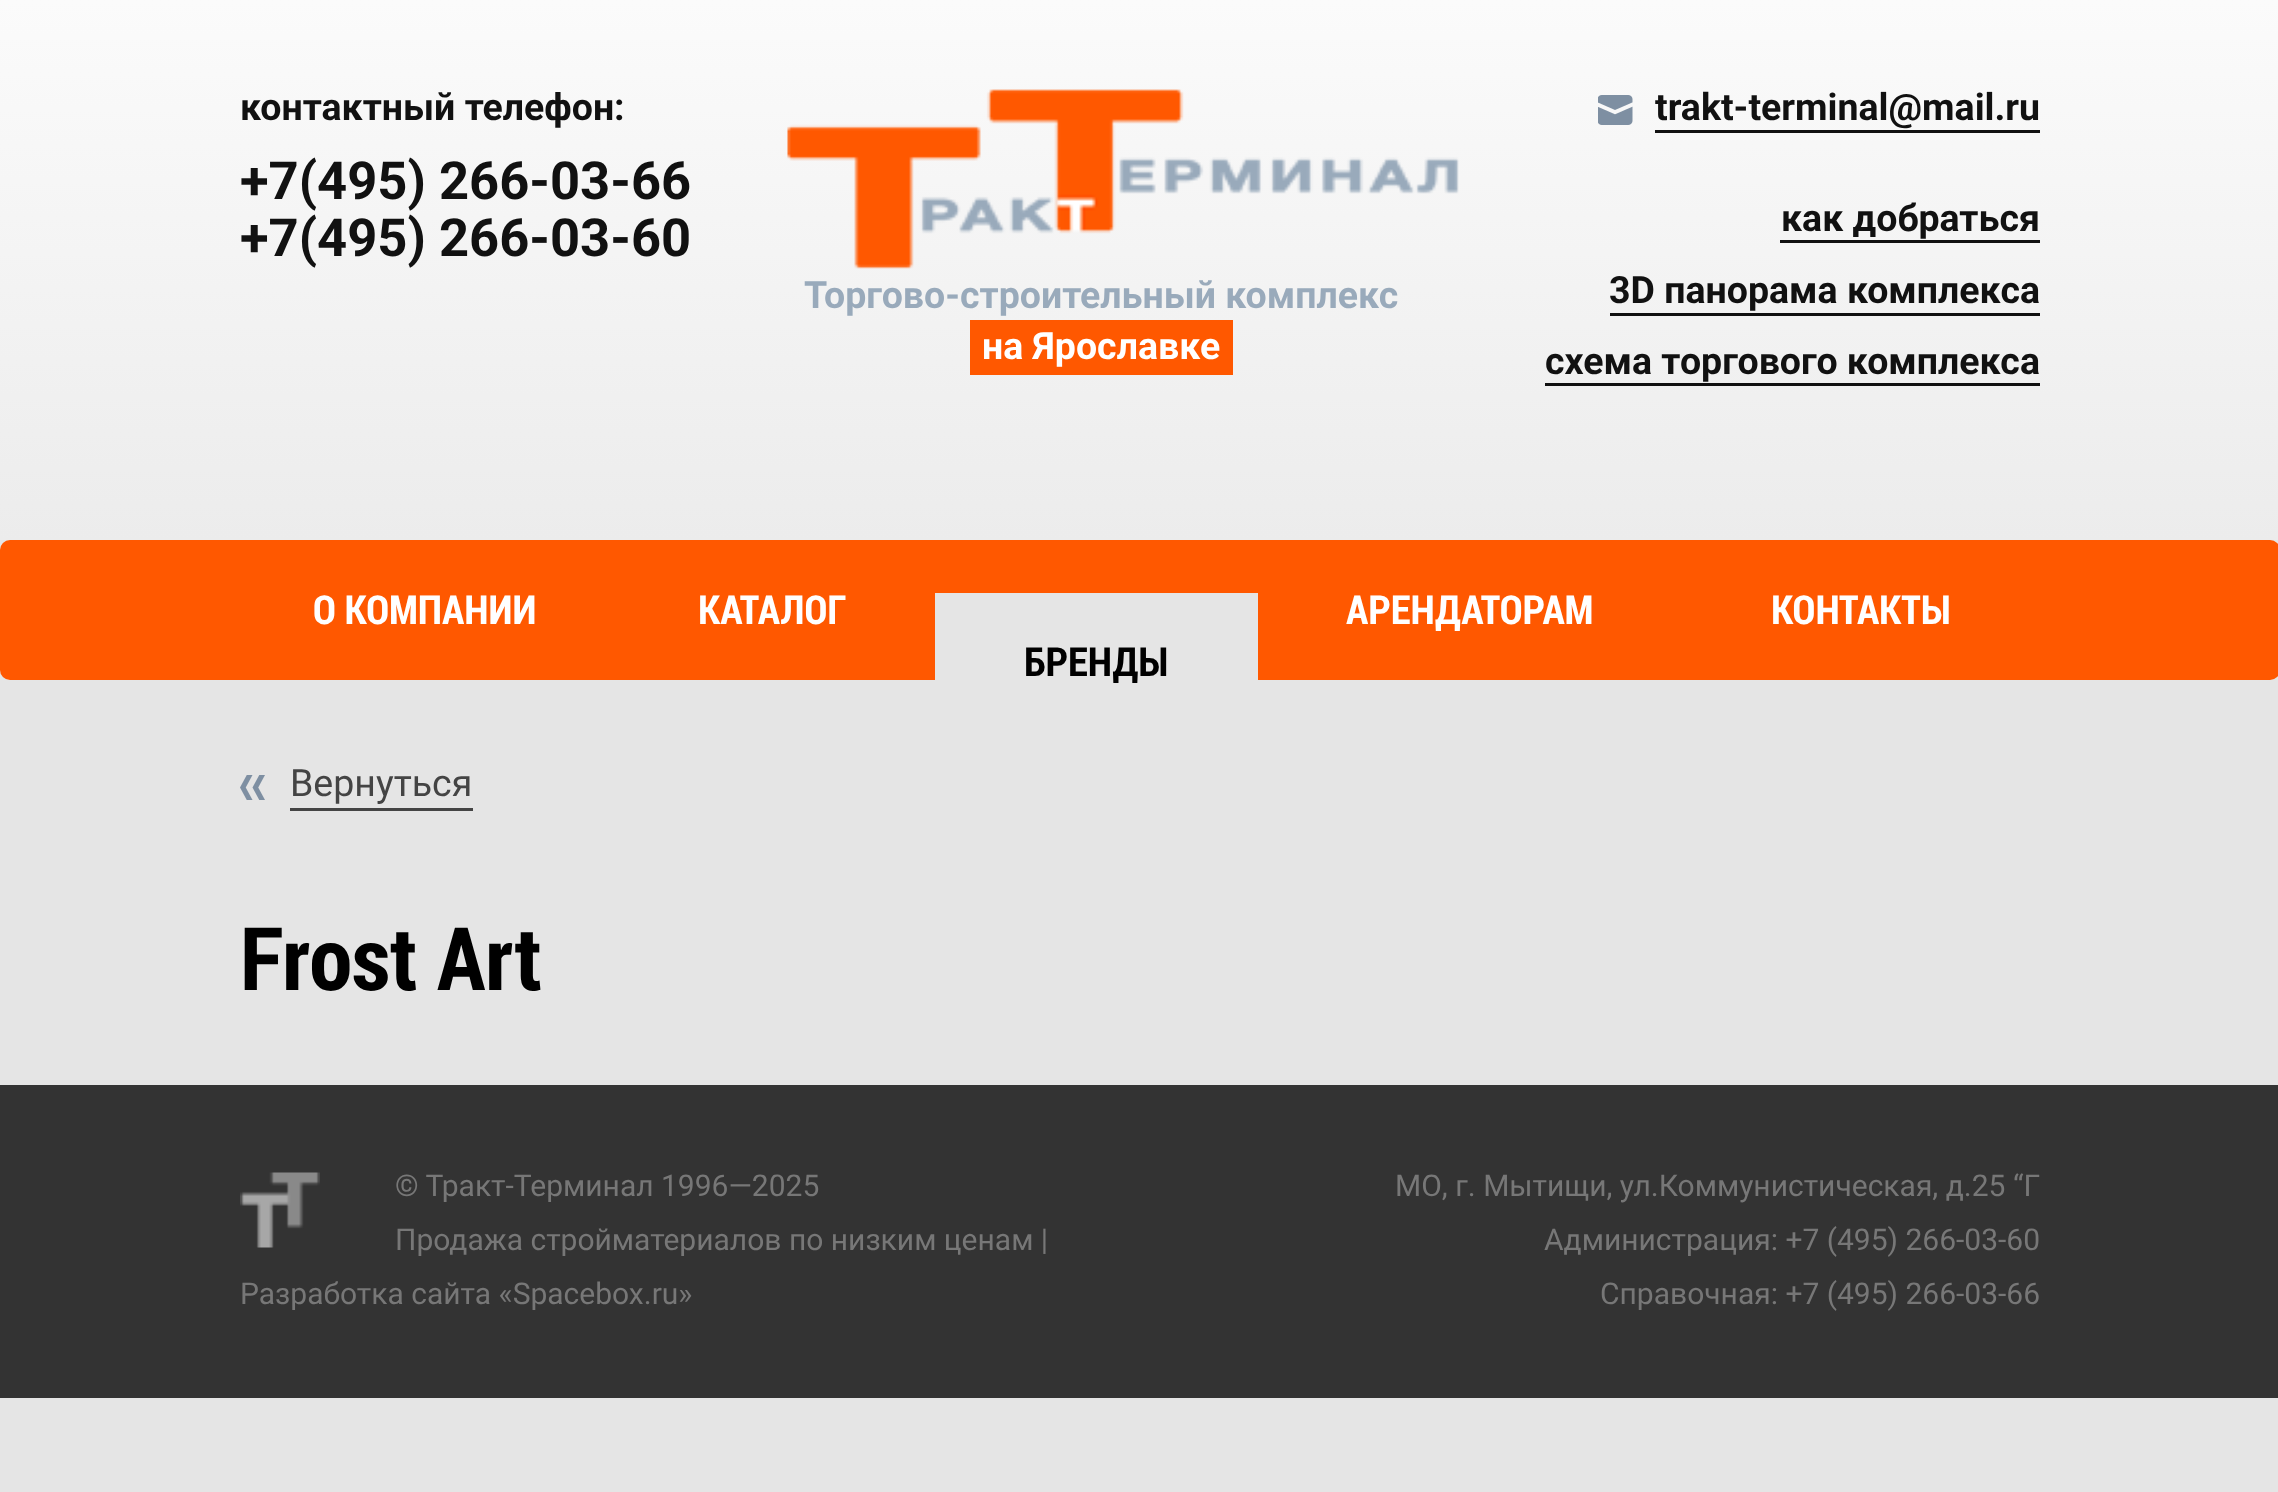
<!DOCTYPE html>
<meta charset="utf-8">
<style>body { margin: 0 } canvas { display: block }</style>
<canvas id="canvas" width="2278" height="1492"></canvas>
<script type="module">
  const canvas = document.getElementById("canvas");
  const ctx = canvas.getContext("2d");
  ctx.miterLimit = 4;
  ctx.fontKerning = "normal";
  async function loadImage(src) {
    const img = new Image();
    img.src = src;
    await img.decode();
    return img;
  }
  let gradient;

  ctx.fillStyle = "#e5e5e5";
  ctx.fillRect(0, 0, 2278, 1492);
  gradient = ctx.createLinearGradient(1140, 0, 1140, 540);
  gradient.addColorStop(0, "#fbfbfb");
  gradient.addColorStop(1, "#ececec");
  ctx.fillStyle = gradient;
  ctx.fillRect(0, 0, 2278, 540);
  ctx.font = "bold 37.5px Roboto";
  ctx.fillStyle = "#111111";
  ctx.fillText("контактный телефон:", 240, 120);
  ctx.font = "bold 52.5px Roboto";
  ctx.fillText("+7(495) 266-03-66", 240, 199);
  ctx.fillText("+7(495) 266-03-60", 240, 256);
  ctx.drawImage(await loadImage("img1.png"), 787, 89, 672, 180);
  ctx.font = "bold 37.5px Roboto";
  ctx.fillStyle = "#99aabb";
  ctx.fillText("Торгово-строительный комплекс", 804, 308);
  ctx.fillStyle = "#ff5800";
  ctx.fillRect(970, 320, 263, 55);
  ctx.fillStyle = "#ffffff";
  ctx.fillText("на Ярославке", 982, 359);
  ctx.drawImage(await loadImage("img2.png"), 1598, 95, 35, 30);
  ctx.fillStyle = "#111111";
  ctx.fillText("trakt-terminal@mail.ru", 1655, 120);
  ctx.fillRect(1655, 130, 385, 3);
  ctx.fillRect(1780, 240, 260, 3);
  ctx.fillText("как добраться", 1781, 231);
  ctx.fillRect(1610, 313, 430, 3);
  ctx.fillText("3D панорама комплекса", 1609, 303);
  ctx.fillRect(1545, 383, 495, 3);
  ctx.fillText("схема торгового комплекса", 1545, 374);
  ctx.fillStyle = "#ff5800";
  ctx.beginPath();
  ctx.roundRect(0, 540, 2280, 140, 10);
  ctx.fill();
  ctx.font = "bold 40px Roboto Condensed";
  ctx.fillStyle = "#ffffff";
  ctx.fillText("О КОМПАНИИ", 313, 624);
  ctx.fillText("КАТАЛОГ", 698, 624);
  ctx.fillText("АРЕНДАТОРАМ", 1346, 624);
  ctx.fillText("КОНТАКТЫ", 1771, 624);
  ctx.fillStyle = "#e5e5e5";
  ctx.fillRect(935, 593, 323, 87);
  ctx.fillStyle = "#000000";
  ctx.fillText("БРЕНДЫ", 1024, 676);
  ctx.drawImage(await loadImage("img3.png"), 240, 775, 25, 25);
  ctx.font = "37.5px Roboto";
  ctx.fillStyle = "#444444";
  ctx.fillText("Вернуться", 290, 796);
  ctx.fillRect(290, 808, 183, 3);
  ctx.font = "bold 87.5px Roboto Condensed";
  ctx.fillStyle = "#000000";
  ctx.fillText("Frost Art", 240, 990);
  ctx.fillStyle = "#333333";
  ctx.fillRect(0, 1085, 2278, 313);
  ctx.drawImage(await loadImage("img4.png"), 240, 1172, 80, 76);
  ctx.font = "30px Roboto";
  ctx.fillStyle = "#777777";
  ctx.fillText("© Тракт-Терминал 1996—2025", 395, 1196);
  ctx.fillText("Продажа стройматериалов по низким ценам |", 395, 1250);
  ctx.fillText("Разработка сайта «Spacebox.ru»", 240, 1304);
  ctx.fillText("МО, г. Мытищи, ул.Коммунистическая, д.25 “Г", 1395, 1196);
  ctx.fillText("Администрация: +7 (495) 266-03-60", 1544, 1250);
  ctx.fillText("Справочная: +7 (495) 266-03-66", 1600, 1304);
</script>
